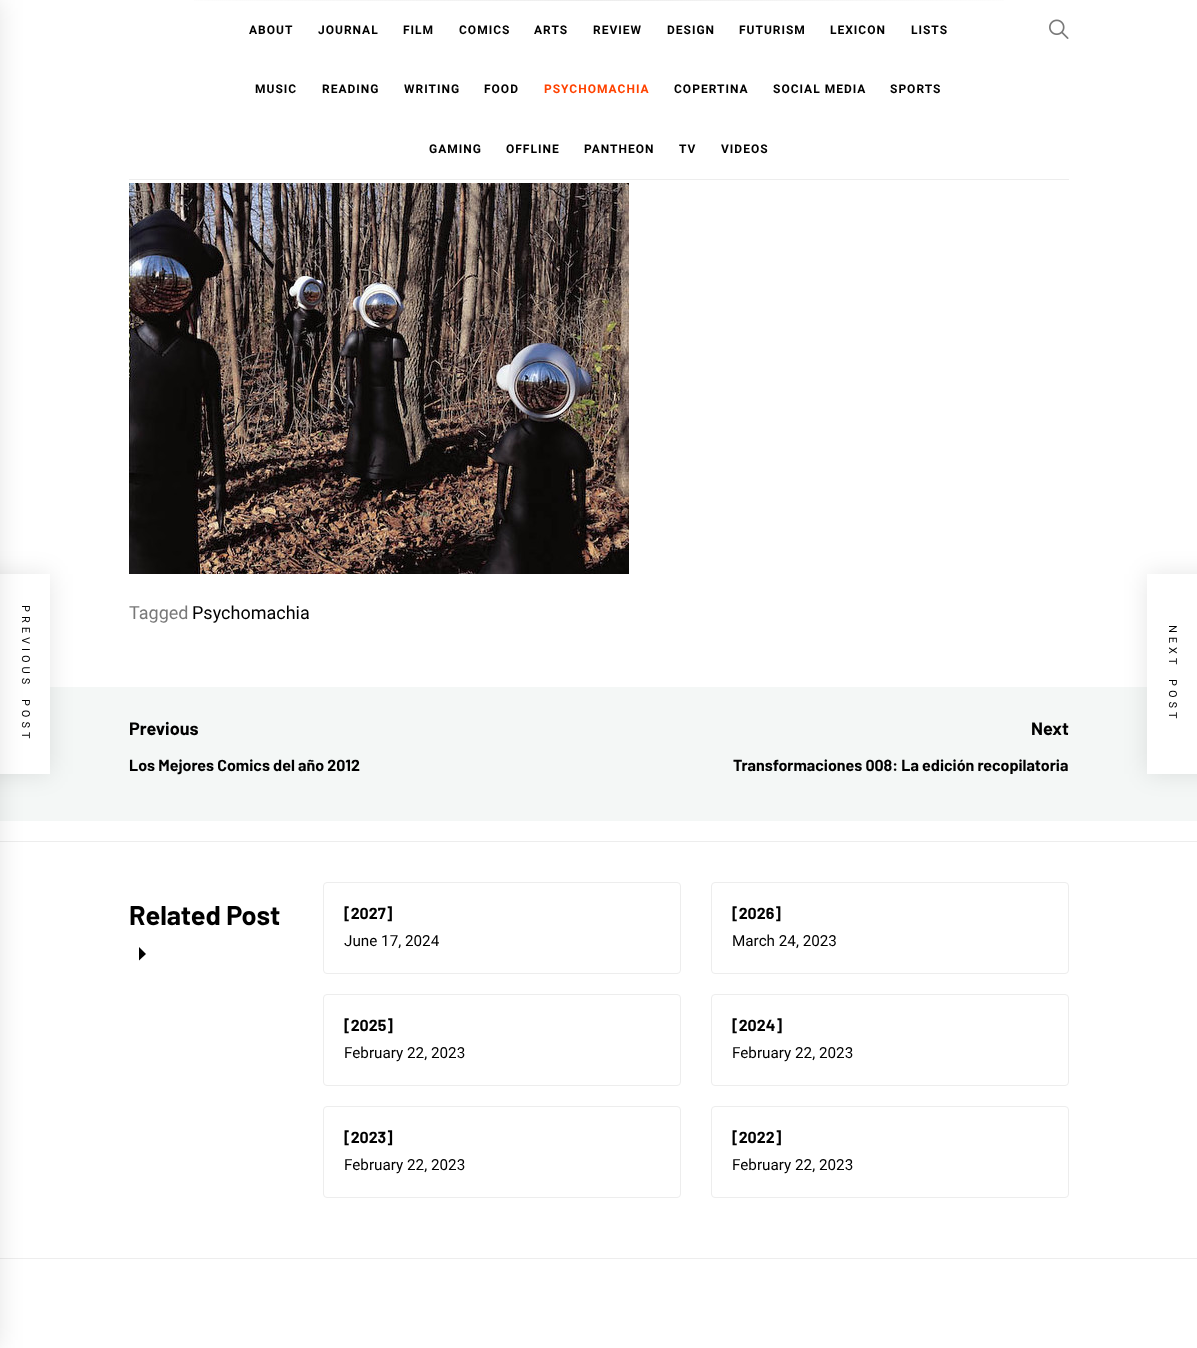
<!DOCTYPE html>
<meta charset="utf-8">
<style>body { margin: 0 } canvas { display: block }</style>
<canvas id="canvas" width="1197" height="1348"></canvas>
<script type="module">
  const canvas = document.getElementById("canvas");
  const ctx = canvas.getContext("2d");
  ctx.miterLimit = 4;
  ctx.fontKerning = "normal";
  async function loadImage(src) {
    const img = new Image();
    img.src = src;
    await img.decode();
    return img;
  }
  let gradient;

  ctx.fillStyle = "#ffffff";
  ctx.fillRect(0, 0, 1197, 1348);
  ctx.fillStyle = "#f4f7f6";
  ctx.fillRect(0, 687, 1197, 134);
  ctx.fillStyle = "rgba(0, 0, 0, 0.1)";
  ctx.filter = "blur(12.5px)";
  ctx.beginPath();
  ctx.rect(-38, 574, 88, 200);
  ctx.fill();
  ctx.filter = "none";
  ctx.fillStyle = "#ffffff";
  ctx.fillRect(0, 574, 50, 200);
  ctx.fillStyle = "#ededed";
  ctx.fillRect(0, 841, 1197, 1);
  ctx.fillRect(0, 1258, 1197, 1);
  ctx.fillStyle = "rgba(0, 0, 0, 0.1)";
  ctx.filter = "blur(12.5px)";
  ctx.beginPath();
  ctx.rect(-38, 0, 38, 1348);
  ctx.fill();
  ctx.filter = "none";
  ctx.fillStyle = "#ededed";
  ctx.fillRect(129, 179, 940, 1);
  gradient = ctx.createLinearGradient(1069, 0.5, 129, 0.5);
  gradient.addColorStop(0, "#ffffff");
  gradient.addColorStop(0.5, "#ededed");
  gradient.addColorStop(1, "#ffffff");
  ctx.fillStyle = gradient;
  ctx.fillRect(194, 0, 810, 1);
  ctx.letterSpacing = "1px";
  ctx.font = "bold 12px Roboto";
  ctx.fillStyle = "#000000";
  ctx.fillText("ABOUT", 249, 34);
  ctx.fillText("JOURNAL", 318, 34);
  ctx.fillText("FILM", 403, 34);
  ctx.fillText("COMICS", 459, 34);
  ctx.fillText("ARTS", 534, 34);
  ctx.fillText("REVIEW", 593, 34);
  ctx.fillText("DESIGN", 667, 34);
  ctx.fillText("FUTURISM", 739, 34);
  ctx.fillText("LEXICON", 830, 34);
  ctx.fillText("LISTS", 911, 34);
  ctx.fillText("MUSIC", 255, 93);
  ctx.fillText("READING", 322, 93);
  ctx.fillText("WRITING", 404, 93);
  ctx.fillText("FOOD", 484, 93);
  ctx.fillStyle = "#ff4200";
  ctx.fillText("PSYCHOMACHIA", 544, 93);
  ctx.fillStyle = "#000000";
  ctx.fillText("COPERTINA", 674, 93);
  ctx.fillText("SOCIAL MEDIA", 773, 93);
  ctx.fillText("SPORTS", 890, 93);
  ctx.fillText("GAMING", 429, 153);
  ctx.fillText("OFFLINE", 506, 153);
  ctx.fillText("PANTHEON", 584, 153);
  ctx.fillText("TV", 679, 153);
  ctx.fillText("VIDEOS", 721, 153);
  ctx.drawImage(await loadImage("img1.png"), 1049, 19, 20, 20);
  ctx.letterSpacing = "4px";
  ctx.wordSpacing = "4px";
  ctx.font = "11px Roboto";
  ctx.save();
  ctx.translate(22, 605);
  ctx.rotate(90 * Math.PI / 180);
  ctx.fillText("PREVIOUS POST", 0, 0);
  ctx.restore();
  ctx.drawImage(await loadImage("img2.png"), 129, 183, 500, 391);
  ctx.letterSpacing = "0px";
  ctx.wordSpacing = "0px";
  ctx.font = "18px Roboto";
  ctx.fillStyle = "#787878";
  ctx.fillText("Tagged", 129, 619);
  ctx.fillStyle = "#000000";
  ctx.fillText("Psychomachia", 192, 619);
  ctx.fillStyle = "rgba(0, 0, 0, 0.1)";
  ctx.filter = "blur(12.5px)";
  ctx.beginPath();
  ctx.rect(1147, 574, 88, 200);
  ctx.fill();
  ctx.filter = "none";
  ctx.fillStyle = "#ffffff";
  ctx.fillRect(1147, 574, 50, 200);
  ctx.letterSpacing = "4px";
  ctx.wordSpacing = "4px";
  ctx.font = "11px Roboto";
  ctx.fillStyle = "#000000";
  ctx.save();
  ctx.translate(1169, 625);
  ctx.rotate(90 * Math.PI / 180);
  ctx.fillText("NEXT POST", 0, 0);
  ctx.restore();
  ctx.letterSpacing = "0px";
  ctx.wordSpacing = "0px";
  ctx.font = "bold 18px Barlow";
  ctx.fillText("Previous", 129, 735);
  ctx.font = "bold 16px Barlow";
  ctx.fillText("Los Mejores Comics del año 2012", 129, 771);
  ctx.font = "bold 18px Barlow";
  ctx.fillText("Next", 1031, 735);
  ctx.font = "bold 16px Barlow";
  ctx.fillText("Transformaciones 008: La edición recopilatoria", 733, 771);
  ctx.font = "bold 27px Barlow";
  ctx.fillText("Related Post", 129, 925);
  ctx.beginPath();
  ctx.moveTo(139, 947);
  ctx.lineTo(146, 954);
  ctx.lineTo(139, 960.5);
  ctx.closePath();
  ctx.fill();
  ctx.beginPath();
  ctx.roundRect(323.5, 882.5, 357, 91, 3.5);
  ctx.strokeStyle = "#ededed";
  ctx.stroke();
  ctx.font = "bold 16px Barlow";
  ctx.fillText("[2027]", 344, 919);
  ctx.font = "15.25px Roboto";
  ctx.fillText("June 17, 2024", 344, 946);
  ctx.beginPath();
  ctx.roundRect(711.5, 882.5, 357, 91, 3.5);
  ctx.stroke();
  ctx.font = "bold 16px Barlow";
  ctx.fillText("[2026]", 732, 919);
  ctx.font = "15.25px Roboto";
  ctx.fillText("March 24, 2023", 732, 946);
  ctx.beginPath();
  ctx.roundRect(323.5, 994.5, 357, 91, 3.5);
  ctx.stroke();
  ctx.font = "bold 16px Barlow";
  ctx.fillText("[2025]", 344, 1031);
  ctx.font = "15.25px Roboto";
  ctx.fillText("February 22, 2023", 344, 1058);
  ctx.beginPath();
  ctx.roundRect(711.5, 994.5, 357, 91, 3.5);
  ctx.stroke();
  ctx.font = "bold 16px Barlow";
  ctx.fillText("[2024]", 732, 1031);
  ctx.font = "15.25px Roboto";
  ctx.fillText("February 22, 2023", 732, 1058);
  ctx.beginPath();
  ctx.roundRect(323.5, 1106.5, 357, 91, 3.5);
  ctx.stroke();
  ctx.font = "bold 16px Barlow";
  ctx.fillText("[2023]", 344, 1143);
  ctx.font = "15.25px Roboto";
  ctx.fillText("February 22, 2023", 344, 1170);
  ctx.beginPath();
  ctx.roundRect(711.5, 1106.5, 357, 91, 3.5);
  ctx.stroke();
  ctx.font = "bold 16px Barlow";
  ctx.fillText("[2022]", 732, 1143);
  ctx.font = "15.25px Roboto";
  ctx.fillText("February 22, 2023", 732, 1170);
</script>
